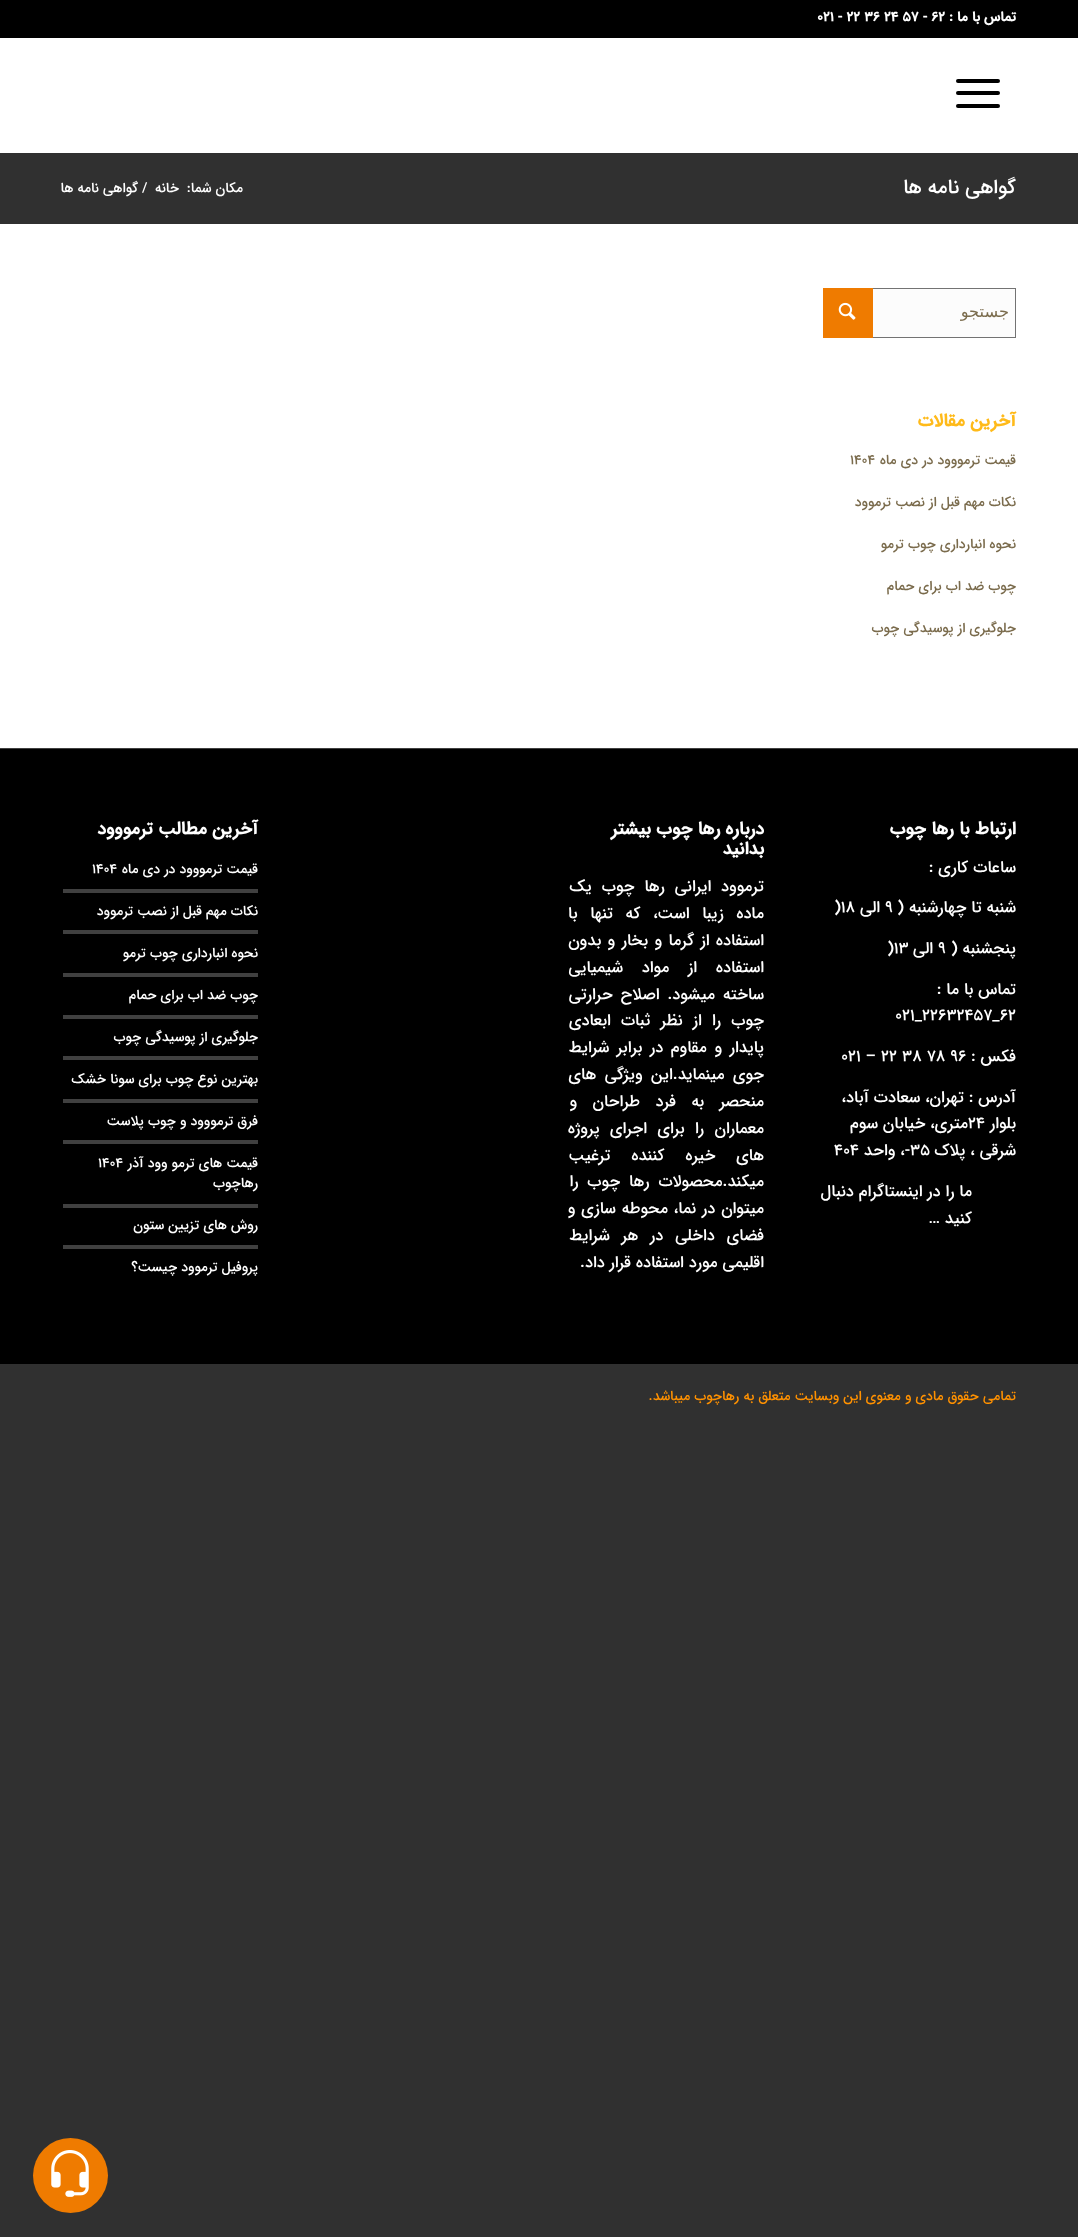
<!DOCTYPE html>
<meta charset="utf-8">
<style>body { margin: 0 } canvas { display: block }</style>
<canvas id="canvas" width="1078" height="2237"></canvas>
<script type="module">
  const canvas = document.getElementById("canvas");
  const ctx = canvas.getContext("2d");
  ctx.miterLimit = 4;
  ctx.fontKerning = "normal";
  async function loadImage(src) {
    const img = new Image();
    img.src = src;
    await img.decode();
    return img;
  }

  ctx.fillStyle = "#303030";
  ctx.fillRect(0, 0, 1078, 2237);
  ctx.fillStyle = "#ffffff";
  ctx.fillRect(0, 38, 1078, 710);
  ctx.fillStyle = "#000000";
  ctx.fillRect(0, 0, 1078, 38);
  ctx.direction = "rtl";
  ctx.font = "bold 13.75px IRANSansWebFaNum";
  ctx.fillStyle = "#ffffff";
  ctx.fillText("تماس با ما :", 1016, 21);
  ctx.direction = "ltr";
  ctx.fillText("021 - 22 36 24 57 - 62", 817, 21);
  ctx.fillStyle = "#000000";
  ctx.beginPath();
  ctx.roundRect(956, 91, 44, 4, 2);
  ctx.fill();
  ctx.beginPath();
  ctx.roundRect(956, 79, 44, 4, 2);
  ctx.fill();
  ctx.beginPath();
  ctx.roundRect(956, 104, 44, 4, 2);
  ctx.fill();
  ctx.fillStyle = "#303030";
  ctx.fillRect(0, 153, 1078, 71);
  ctx.direction = "rtl";
  ctx.font = "500 20px IRANSansWebFaNum";
  ctx.fillStyle = "#ffffff";
  ctx.fillText("گواهی نامه ها", 1016, 193);
  ctx.font = "500 13.75px IRANSansWebFaNum";
  ctx.fillText("مکان شما:", 243, 192);
  ctx.fillText("خانه", 179, 192);
  ctx.direction = "ltr";
  ctx.fillText("/", 142, 192);
  ctx.direction = "rtl";
  ctx.fillText("گواهی نامه ها", 138, 192);
  ctx.fillStyle = "#fcfcfc";
  ctx.fillRect(873, 289, 142, 48);
  ctx.strokeStyle = "#737373";
  ctx.strokeRect(823.5, 288.5, 192, 49);
  ctx.font = "16.25px DejaVu Sans";
  ctx.fillStyle = "#7a6b4c";
  ctx.fillText("جستجو", 1009, 317);
  ctx.fillStyle = "#ef7b00";
  ctx.fillRect(823, 288, 50, 50);
  ctx.drawImage(await loadImage("img1.png"), 838, 302, 18, 18);
  ctx.font = "bold 17.9px IRANSansWebFaNum";
  ctx.fillStyle = "#ffba19";
  ctx.fillText("آخرین مقالات", 1016, 426);
  ctx.font = "500 13.75px IRANSansWebFaNum";
  ctx.fillStyle = "#7a6b4c";
  ctx.fillText("قیمت ترمووود در دی ماه", 1016, 464);
  ctx.direction = "ltr";
  ctx.fillText("۱۴۰۴", 850, 464);
  ctx.direction = "rtl";
  ctx.fillText("نکات مهم قبل از نصب ترموود", 1016, 506);
  ctx.fillText("نحوه انبارداری چوب ترمو", 1016, 548);
  ctx.fillText("چوب ضد اب برای حمام", 1016, 590);
  ctx.fillText("جلوگیری از پوسیدگی چوب", 1016, 632);
  ctx.fillStyle = "#000000";
  ctx.fillRect(0, 749, 1078, 615);
  ctx.fillStyle = "#404040";
  ctx.fillRect(0, 748, 1078, 1);
  ctx.font = "bold 17.9px IRANSansWebFaNum";
  ctx.fillStyle = "#ffffff";
  ctx.fillText("ارتباط با رها چوب", 1016, 834);
  ctx.font = "500 16.25px IRANSansWebFaNum";
  ctx.fillText("ساعات کاری :", 1016, 872);
  ctx.fillText("شنبه تا چهارشنبه (", 1016, 912);
  ctx.direction = "ltr";
  ctx.fillText("9", 885, 912);
  ctx.direction = "rtl";
  ctx.fillText("الی", 880, 912);
  ctx.direction = "ltr";
  ctx.fillText(")18", 834, 912);
  ctx.direction = "rtl";
  ctx.fillText("پنجشنبه (", 1016, 953);
  ctx.direction = "ltr";
  ctx.fillText("9", 938, 953);
  ctx.direction = "rtl";
  ctx.fillText("الی", 933, 953);
  ctx.direction = "ltr";
  ctx.fillText(")13", 887, 953);
  ctx.direction = "rtl";
  ctx.fillText("تماس با ما :", 1016, 994);
  ctx.direction = "ltr";
  ctx.fillText("021_22632457_62", 895, 1020);
  ctx.direction = "rtl";
  ctx.fillText("فکس :", 1016, 1061);
  ctx.direction = "ltr";
  ctx.fillText("021 – 22 38 78 96", 841, 1061);
  ctx.direction = "rtl";
  ctx.fillText("آدرس : تهران، سعادت آباد،", 1016, 1102);
  ctx.fillText("بلوار", 1016, 1128);
  ctx.direction = "ltr";
  ctx.fillText("24", 968, 1128);
  ctx.direction = "rtl";
  ctx.fillText("متری، خیابان سوم", 968, 1128);
  ctx.fillText("شرقی ، پلاک", 1016, 1155);
  ctx.direction = "ltr";
  ctx.fillText("35", 910, 1155);
  ctx.direction = "rtl";
  ctx.fillText("-، واحد", 910, 1155);
  ctx.direction = "ltr";
  ctx.fillText("404", 834, 1155);
  ctx.direction = "rtl";
  ctx.fillText("ما را در اینستاگرام دنبال", 972, 1196);
  ctx.fillText("کنید …", 972, 1223);
  ctx.font = "bold 17.9px IRANSansWebFaNum";
  ctx.fillText("درباره رها چوب بیشتر", 764, 834);
  ctx.fillText("بدانید", 764, 854);
  ctx.wordSpacing = "5px";
  ctx.font = "500 16.25px IRANSansWebFaNum";
  ctx.fillText("ترموود ایرانی رها چوب یک", 764, 891);
  ctx.wordSpacing = "7.75px";
  ctx.fillText("ماده زیبا است، که تنها با", 764, 918);
  ctx.wordSpacing = "1.5px";
  ctx.fillText("استفاده از گرما و بخار و بدون", 764, 945);
  ctx.wordSpacing = "14px";
  ctx.fillText("استفاده از مواد شیمیایی", 764, 972);
  ctx.wordSpacing = "3px";
  ctx.fillText("ساخته میشود. اصلاح حرارتی", 764, 999);
  ctx.wordSpacing = "5.25px";
  ctx.fillText("چوب را از نظر ثبات ابعادی", 764, 1025);
  ctx.wordSpacing = "2.75px";
  ctx.fillText("پایدار و مقاوم در برابر شرایط", 764, 1052);
  ctx.wordSpacing = "3.5px";
  ctx.fillText("جوی مینماید.این ویژگی های", 764, 1079);
  ctx.wordSpacing = "10.5px";
  ctx.fillText("منحصر به فرد طراحان و", 764, 1106);
  ctx.wordSpacing = "5.5px";
  ctx.fillText("معماران را برای اجرای پروژه", 764, 1133);
  ctx.wordSpacing = "16px";
  ctx.fillText("های خیره کننده ترغیب", 764, 1160);
  ctx.wordSpacing = "4px";
  ctx.fillText("میکند.محصولات رها چوب را", 764, 1186);
  ctx.wordSpacing = "1px";
  ctx.fillText("میتوان در نما، محوطه سازی و", 764, 1213);
  ctx.wordSpacing = "7px";
  ctx.fillText("فضای داخلی در هر شرایط", 764, 1240);
  ctx.wordSpacing = "0px";
  ctx.fillText("اقلیمی مورد استفاده قرار داد.", 764, 1267);
  ctx.font = "bold 17.9px IRANSansWebFaNum";
  ctx.fillText("آخرین مطالب ترمووود", 258, 834);
  ctx.font = "500 13.75px IRANSansWebFaNum";
  ctx.fillText("قیمت ترمووود در دی ماه", 258, 873);
  ctx.direction = "ltr";
  ctx.fillText("۱۴۰۴", 92, 873);
  ctx.fillStyle = "#404040";
  ctx.fillRect(63, 889, 195, 4);
  ctx.direction = "rtl";
  ctx.fillStyle = "#ffffff";
  ctx.fillText("نکات مهم قبل از نصب ترموود", 258, 915);
  ctx.fillStyle = "#404040";
  ctx.fillRect(63, 930, 195, 4);
  ctx.fillStyle = "#ffffff";
  ctx.fillText("نحوه انبارداری چوب ترمو", 258, 957);
  ctx.fillStyle = "#404040";
  ctx.fillRect(63, 973, 195, 4);
  ctx.fillStyle = "#ffffff";
  ctx.fillText("چوب ضد اب برای حمام", 258, 999);
  ctx.fillStyle = "#404040";
  ctx.fillRect(63, 1015, 195, 4);
  ctx.fillStyle = "#ffffff";
  ctx.fillText("جلوگیری از پوسیدگی چوب", 258, 1041);
  ctx.fillStyle = "#404040";
  ctx.fillRect(63, 1056, 195, 4);
  ctx.fillStyle = "#ffffff";
  ctx.fillText("بهترین نوع چوب برای سونا خشک", 258, 1083);
  ctx.fillStyle = "#404040";
  ctx.fillRect(63, 1099, 195, 4);
  ctx.fillStyle = "#ffffff";
  ctx.fillText("فرق ترمووود و چوب پلاست", 258, 1125);
  ctx.fillStyle = "#404040";
  ctx.fillRect(63, 1140, 195, 4);
  ctx.fillStyle = "#ffffff";
  ctx.fillText("قیمت های ترمو وود آذر", 258, 1167);
  ctx.direction = "ltr";
  ctx.fillText("۱۴۰۴", 98, 1167);
  ctx.direction = "rtl";
  ctx.fillText("رهاچوب", 258, 1187);
  ctx.fillStyle = "#404040";
  ctx.fillRect(63, 1204, 195, 4);
  ctx.fillStyle = "#ffffff";
  ctx.fillText("روش های تزیین ستون", 258, 1229);
  ctx.fillStyle = "#404040";
  ctx.fillRect(63, 1245, 195, 4);
  ctx.fillStyle = "#ffffff";
  ctx.fillText("پروفیل ترموود چیست؟", 258, 1271);
  ctx.fillStyle = "#ff9100";
  ctx.fillText("تمامی حقوق مادی و معنوی این وبسایت متعلق به رهاچوب میباشد.", 1016, 1400);
  ctx.fillStyle = "#ef7b00";
  ctx.beginPath();
  ctx.arc(70.5, 2175.5, 37.5, 0, Math.PI * 2);
  ctx.fill();
  ctx.drawImage(await loadImage("img2.png"), 51, 2150, 38, 47);
</script>
